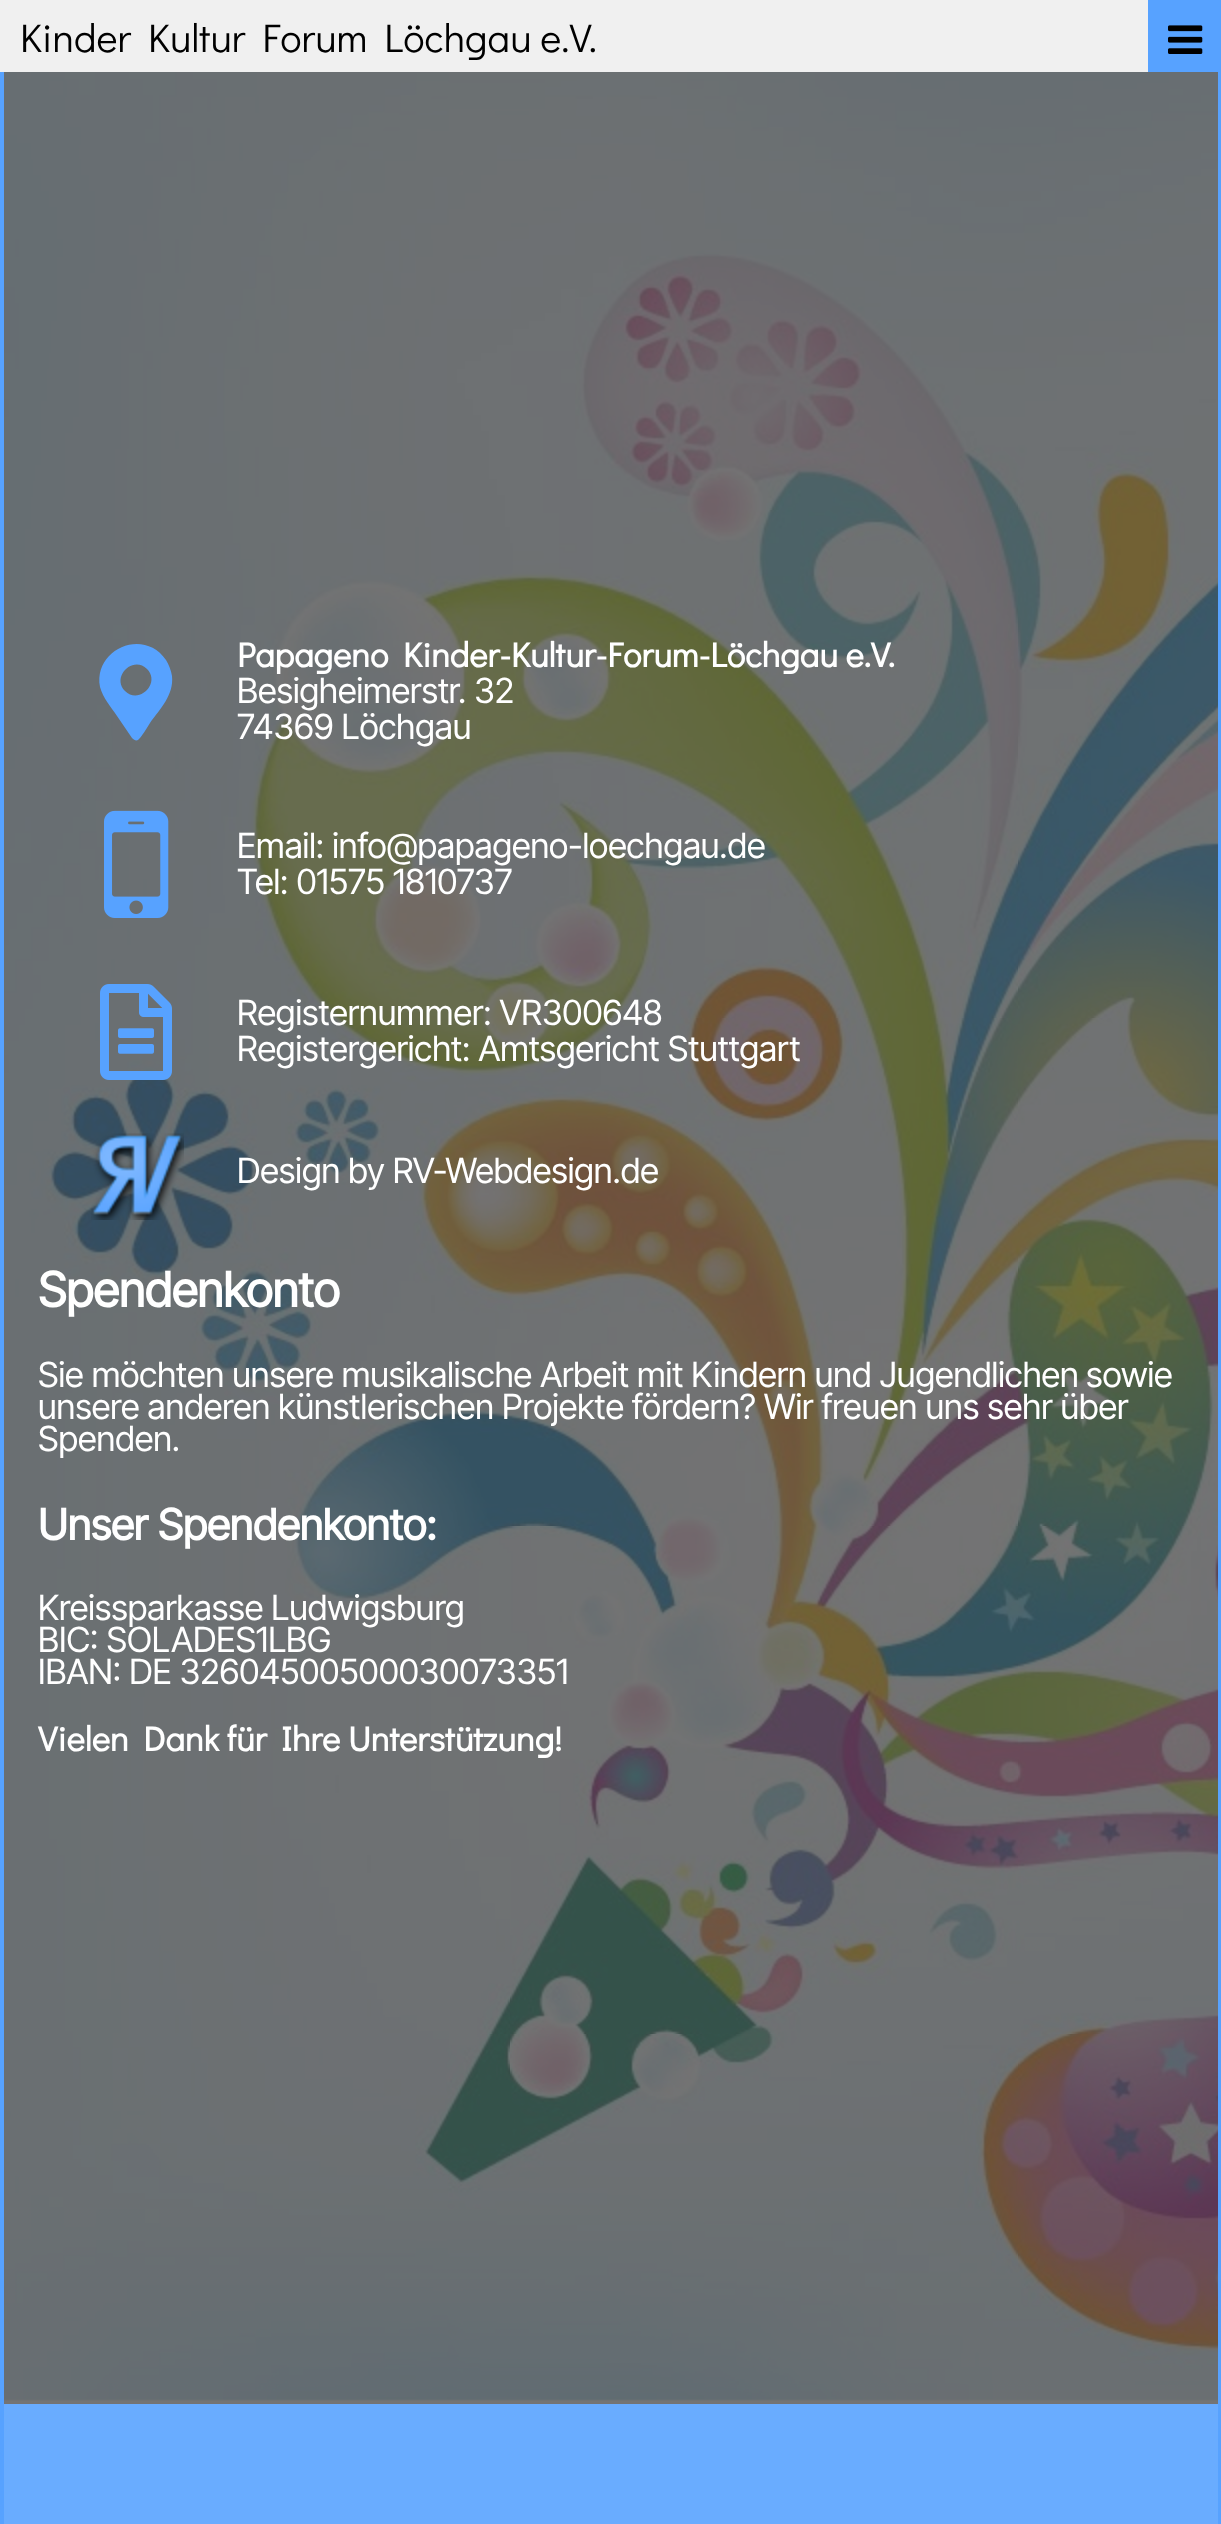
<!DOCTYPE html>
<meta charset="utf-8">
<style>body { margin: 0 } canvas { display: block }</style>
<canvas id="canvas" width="1221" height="2524"></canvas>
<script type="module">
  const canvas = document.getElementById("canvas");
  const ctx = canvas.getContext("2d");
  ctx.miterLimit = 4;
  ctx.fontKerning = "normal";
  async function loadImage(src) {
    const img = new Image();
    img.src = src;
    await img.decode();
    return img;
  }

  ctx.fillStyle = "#747474";
  ctx.fillRect(0, 0, 1221, 2524);
  ctx.drawImage(await loadImage("img1.png"), 4, 72, 1214, 2329);
  ctx.fillStyle = "#f0f0f0";
  ctx.fillRect(0, 0, 1148, 72);
  ctx.font = "40px Didact Gothic";
  ctx.fillStyle = "#000000";
  ctx.fillText("Kinder Kultur Forum Löchgau e.V.", 20, 52);
  ctx.fillStyle = "#57a2ff";
  ctx.fillRect(1148, 0, 73, 72);
  ctx.drawImage(await loadImage("img2.png"), 1168, 25, 35, 29);
  ctx.fillRect(1218, 72, 3, 2452);
  ctx.fillRect(0, 72, 4, 2452);
  ctx.beginPath();
  ctx.moveTo(132, 738);
  ctx.lineTo(117, 716);
  ctx.bezierCurveTo(111, 707, 103, 698, 100, 687);
  ctx.bezierCurveTo(93, 649, 144, 627, 166, 660);
  ctx.bezierCurveTo(169, 665, 171, 670, 172, 676);
  ctx.bezierCurveTo(174, 695, 160, 709, 150, 723);
  ctx.bezierCurveTo(148, 726, 141, 738, 138, 740);
  ctx.bezierCurveTo(136, 741, 134, 740, 132, 738);
  ctx.closePath();
  ctx.moveTo(125, 691);
  ctx.bezierCurveTo(139, 705, 161, 683, 147, 669);
  ctx.bezierCurveTo(133, 655, 111, 677, 125, 691);
  ctx.closePath();
  ctx.fill();
  ctx.font = "bold 34.7px Didact Gothic";
  ctx.fillStyle = "#ffffff";
  ctx.fillText("Papageno Kinder-Kultur-Forum-Löchgau e.V.", 237, 667);
  ctx.font = "34.7px Inter Tight";
  ctx.fillText("Besigheimerstr. 32", 237, 703);
  ctx.fillText("74369 Löchgau", 237, 739);
  ctx.drawImage(await loadImage("img3.png"), 104, 810, 65, 108);
  ctx.fillText("Email: info@papageno-loechgau.de", 237, 858);
  ctx.fillText("Tel: 01575 1810737", 237, 894);
  ctx.drawImage(await loadImage("img4.png"), 100, 984, 72, 96);
  ctx.fillText("Registernummer: VR300648", 237, 1025);
  ctx.fillText("Registergericht: Amtsgericht Stuttgart", 237, 1061);
  ctx.drawImage(await loadImage("img5.png"), 91, 1133, 93, 87);
  ctx.fillText("Design by RV-Webdesign.de", 237, 1183);
  ctx.font = "bold 48px Inter Tight";
  ctx.fillText("Spendenkonto", 38, 1307);
  ctx.font = "34.7px Inter Tight";
  ctx.fillText("Sie möchten unsere musikalische Arbeit mit Kindern und Jugendlichen", 38, 1387);
  ctx.fillText("sowie", 1086, 1387);
  ctx.fillText("unsere anderen künstlerischen Projekte fördern? Wir freuen uns sehr über", 38, 1419);
  ctx.fillText("Spenden.", 38, 1451);
  ctx.font = "bold 42.75px Inter Tight";
  ctx.fillText("Unser Spendenkonto:", 38, 1540);
  ctx.font = "34.7px Inter Tight";
  ctx.fillText("Kreissparkasse Ludwigsburg", 38, 1620);
  ctx.fillText("BIC: SOLADES1LBG", 38, 1652);
  ctx.fillText("IBAN: DE 32604500500030073351", 38, 1684);
  ctx.font = "bold 34.7px Didact Gothic";
  ctx.fillText("Vielen Dank für Ihre Unterstützung!", 38, 1751);
  ctx.fillStyle = "#69acff";
  ctx.fillRect(4, 2404, 1214, 120);
</script>
